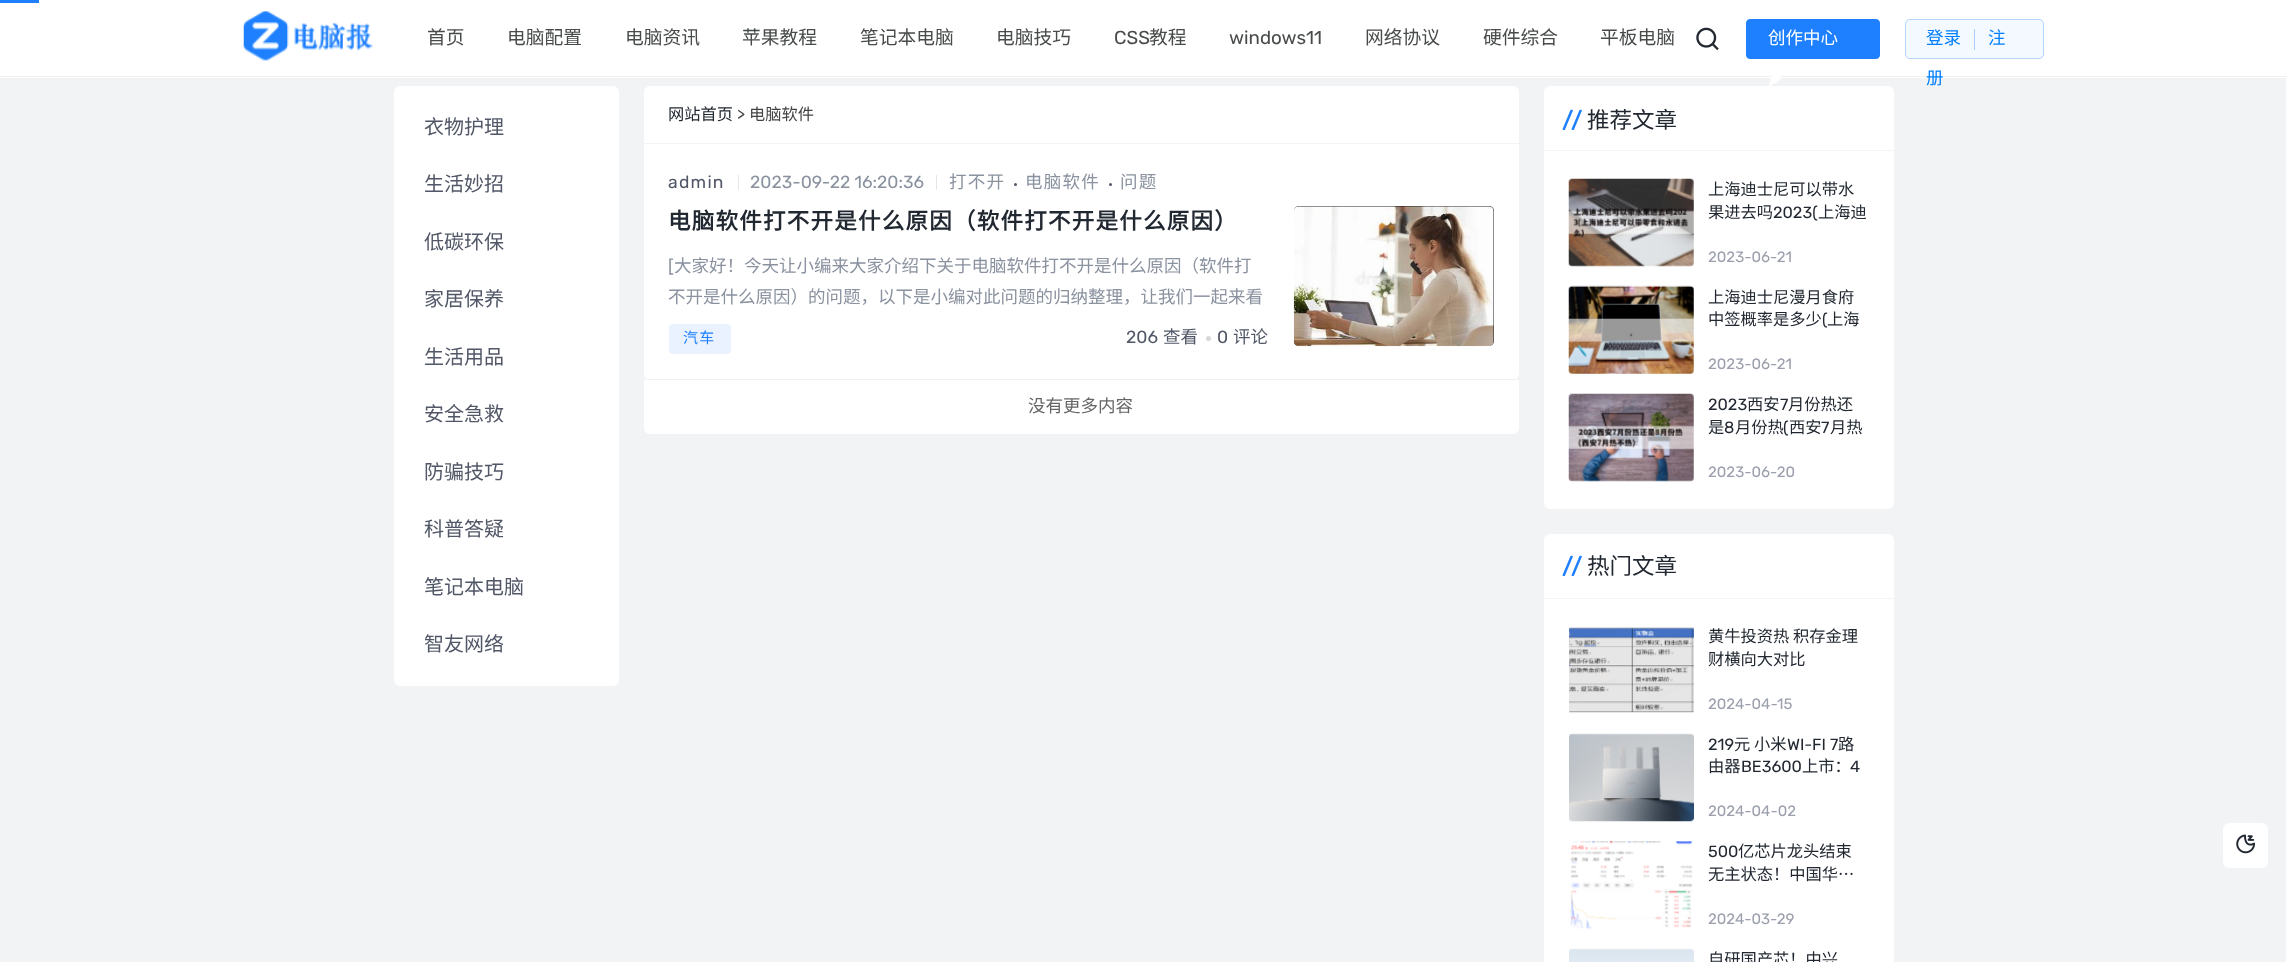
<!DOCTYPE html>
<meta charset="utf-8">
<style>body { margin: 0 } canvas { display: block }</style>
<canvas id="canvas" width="2286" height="962"></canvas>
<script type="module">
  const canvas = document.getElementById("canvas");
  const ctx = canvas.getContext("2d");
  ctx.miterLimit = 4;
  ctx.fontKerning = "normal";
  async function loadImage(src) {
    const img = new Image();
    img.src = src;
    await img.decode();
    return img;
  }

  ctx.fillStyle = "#f2f3f5";
  ctx.fillRect(0, 0, 2286, 962);
  ctx.fillStyle = "#ffffff";
  ctx.fillRect(0, 0, 2286, 78);
  ctx.fillStyle = "#f1f1f1";
  ctx.fillRect(0, 76, 2286, 1);
  ctx.fillStyle = "#1e80ff";
  ctx.fillRect(0, 0, 39, 3);
  ctx.drawImage(await loadImage("img1.png"), 243, 11, 130, 50);
  ctx.font = "18.75px Noto Sans CJK SC";
  ctx.fillStyle = "#474b49";
  ctx.fillText("首页", 427, 44);
  ctx.fillText("电脑配置", 507, 44);
  ctx.fillText("电脑资讯", 625, 44);
  ctx.fillText("苹果教程", 742, 44);
  ctx.fillText("笔记本电脑", 860, 44);
  ctx.fillText("电脑技巧", 996, 44);
  ctx.font = "18.75px Rubik";
  ctx.fillText("CSS", 1114, 44);
  ctx.font = "18.75px Noto Sans CJK SC";
  ctx.fillText("教程", 1149, 44);
  ctx.font = "18.75px Rubik";
  ctx.fillText("windows11", 1229, 44);
  ctx.font = "18.75px Noto Sans CJK SC";
  ctx.fillText("网络协议", 1365, 44);
  ctx.fillText("硬件综合", 1483, 44);
  ctx.fillText("平板电脑", 1600, 44);
  ctx.drawImage(await loadImage("img2.png"), 1696, 27, 23, 24);
  ctx.fillStyle = "#1e80ff";
  ctx.beginPath();
  ctx.roundRect(1746.5, 19.5, 133, 39, 3.5);
  ctx.fill();
  ctx.strokeStyle = "#1e80ff";
  ctx.stroke();
  ctx.font = "17.5px Noto Sans CJK SC";
  ctx.fillStyle = "#ffffff";
  ctx.fillText("创作中心", 1768, 44);
  ctx.drawImage(await loadImage("img3.png"), 1769, 76, 12, 10);
  ctx.fillStyle = "#f4f9ff";
  ctx.beginPath();
  ctx.roundRect(1905, 19, 139, 40, 5);
  ctx.fill();
  ctx.beginPath();
  ctx.roundRect(1905.5, 19.5, 138, 39, 4.5);
  ctx.strokeStyle = "rgba(30, 128, 255, 0.3)";
  ctx.stroke();
  ctx.fillStyle = "#007fff";
  ctx.fillText("登录", 1926, 44);
  ctx.fillStyle = "#abcdff";
  ctx.fillRect(1974, 29, 1, 21);
  ctx.fillStyle = "#007fff";
  ctx.fillText("注", 1988, 44);
  ctx.fillText("册", 1926, 84);
  ctx.fillStyle = "#ffffff";
  ctx.beginPath();
  ctx.roundRect(394, 86, 225, 600, 6);
  ctx.fill();
  ctx.font = "20px Noto Sans CJK SC";
  ctx.fillStyle = "#515767";
  ctx.fillText("衣物护理", 424, 134);
  ctx.fillText("生活妙招", 424, 191);
  ctx.fillText("低碳环保", 424, 249);
  ctx.fillText("家居保养", 424, 306);
  ctx.fillText("生活用品", 424, 364);
  ctx.fillText("安全急救", 424, 421);
  ctx.fillText("防骗技巧", 424, 479);
  ctx.fillText("科普答疑", 424, 536);
  ctx.fillText("笔记本电脑", 424, 594);
  ctx.fillText("智友网络", 424, 651);
  ctx.fillStyle = "#ffffff";
  ctx.beginPath();
  ctx.roundRect(644, 86, 875, 58, [6, 6, 0, 0]);
  ctx.fill();
  ctx.fillStyle = "#f3f3f3";
  ctx.fillRect(644, 143, 875, 1);
  ctx.font = "16.25px Noto Sans CJK SC";
  ctx.fillStyle = "#222831";
  ctx.fillText("网站首页", 668, 120);
  ctx.font = "16.25px Rubik";
  ctx.fillStyle = "#444444";
  ctx.fillText(">", 737, 120);
  ctx.font = "16.25px Noto Sans CJK SC";
  ctx.fillText("电脑软件", 749, 120);
  ctx.fillStyle = "#ffffff";
  ctx.beginPath();
  ctx.roundRect(644, 144, 875, 236, [0, 0, 6, 6]);
  ctx.fill();
  ctx.fillStyle = "#f0f0f0";
  ctx.fillRect(648, 379, 868, 1);
  ctx.letterSpacing = "1.25px";
  ctx.font = "17.5px Rubik";
  ctx.fillStyle = "#515767";
  ctx.fillText("admin", 668, 188);
  ctx.fillStyle = "#e5e6eb";
  ctx.fillRect(738, 175, 1, 15);
  ctx.letterSpacing = "0px";
  ctx.fillStyle = "#8a919f";
  ctx.fillText("2023-09-22 16:20:36", 750, 188);
  ctx.fillStyle = "#e5e6eb";
  ctx.fillRect(936, 175, 1, 15);
  ctx.letterSpacing = "1.25px";
  ctx.font = "17.5px Noto Sans CJK SC";
  ctx.fillStyle = "#8a919f";
  ctx.fillText("打不开", 949, 188);
  ctx.fillStyle = "#515767";
  ctx.beginPath();
  ctx.arc(1015.5, 184.5, 1.5, 0, Math.PI * 2);
  ctx.fill();
  ctx.fillStyle = "#8a919f";
  ctx.fillText("电脑软件", 1025, 188);
  ctx.fillStyle = "#515767";
  ctx.beginPath();
  ctx.arc(1110.5, 184.5, 1.5, 0, Math.PI * 2);
  ctx.fill();
  ctx.fillStyle = "#8a919f";
  ctx.fillText("问题", 1120, 188);
  ctx.font = "bold 22.5px Noto Sans CJK SC";
  ctx.fillStyle = "#222831";
  ctx.fillText("电脑软件打不开是什么原因（软件打不开是什么原因）", 668, 229);
  ctx.fillStyle = "#000000";
  ctx.beginPath();
  ctx.roundRect(1294, 206, 200, 140, 5);
  ctx.fill();
  ctx.drawImage(await loadImage("img4.png"), 1293, 206, 201, 141);
  ctx.letterSpacing = "0px";
  ctx.font = "17.5px Rubik";
  ctx.fillStyle = "#8a919f";
  ctx.fillText("[", 668, 272);
  ctx.font = "17.5px Noto Sans CJK SC";
  ctx.fillText("大家好！今天让小编来大家介绍下关于电脑软件打不开是什么原因（软件打", 674, 272);
  ctx.fillText("不开是什么原因）的问题，以下是小编对此问题的归纳整理，让我们一起来看", 668, 303);
  ctx.fillStyle = "#eaf2ff";
  ctx.beginPath();
  ctx.roundRect(669, 324, 62, 30, 4);
  ctx.fill();
  ctx.letterSpacing = "1.25px";
  ctx.font = "15px Noto Sans CJK SC";
  ctx.fillStyle = "#1e80ff";
  ctx.fillText("汽车", 683, 343);
  ctx.letterSpacing = "0px";
  ctx.font = "17.5px Rubik";
  ctx.fillStyle = "#515767";
  ctx.fillText("206", 1126, 343);
  ctx.font = "17.5px Noto Sans CJK SC";
  ctx.fillText("查看", 1163, 343);
  ctx.fillStyle = "#d8d8d8";
  ctx.beginPath();
  ctx.arc(1208.5, 338.5, 2.5, 0, Math.PI * 2);
  ctx.fill();
  ctx.font = "17.5px Rubik";
  ctx.fillStyle = "#515767";
  ctx.fillText("0", 1217, 343);
  ctx.font = "17.5px Noto Sans CJK SC";
  ctx.fillText("评论", 1233, 343);
  ctx.fillStyle = "#ffffff";
  ctx.beginPath();
  ctx.roundRect(644, 380, 875, 54, [0, 0, 6, 6]);
  ctx.fill();
  ctx.fillStyle = "#666666";
  ctx.fillText("没有更多内容", 1028, 412);
  ctx.fillStyle = "#ffffff";
  ctx.beginPath();
  ctx.roundRect(1544, 86, 350, 423, 6);
  ctx.fill();
  ctx.fillStyle = "#f3f3f3";
  ctx.fillRect(1544, 150, 350, 1);
  ctx.font = "bold 22.5px Rubik";
  ctx.fillStyle = "#1e80ff";
  ctx.fillText("/", 1562, 128);
  ctx.fillText("/", 1571, 128);
  ctx.font = "22.5px Noto Sans CJK SC";
  ctx.fillStyle = "#222831";
  ctx.fillText("推荐文章", 1587, 128);
  ctx.drawImage(await loadImage("img5.png"), 1568, 178, 126, 89);
  ctx.font = "16.25px Noto Sans CJK SC";
  ctx.fillText("上海迪士尼可以带水", 1708, 195);
  ctx.fillText("果进去吗", 1708, 218);
  ctx.font = "16.25px Rubik";
  ctx.fillText("2023(", 1773, 218);
  ctx.font = "16.25px Noto Sans CJK SC";
  ctx.fillText("上海迪", 1818, 218);
  ctx.font = "15px Rubik";
  ctx.fillStyle = "#9ca0ad";
  ctx.fillText("2023-06-21", 1708, 262);
  ctx.drawImage(await loadImage("img6.png"), 1568, 285, 126, 89);
  ctx.font = "16.25px Noto Sans CJK SC";
  ctx.fillStyle = "#222831";
  ctx.fillText("上海迪士尼漫月食府", 1708, 303);
  ctx.fillText("中签概率是多少", 1708, 325);
  ctx.font = "16.25px Rubik";
  ctx.fillText("(", 1822, 325);
  ctx.font = "16.25px Noto Sans CJK SC";
  ctx.fillText("上海", 1827, 325);
  ctx.font = "15px Rubik";
  ctx.fillStyle = "#9ca0ad";
  ctx.fillText("2023-06-21", 1708, 369);
  ctx.drawImage(await loadImage("img7.png"), 1568, 393, 126, 89);
  ctx.font = "16.25px Rubik";
  ctx.fillStyle = "#222831";
  ctx.fillText("2023", 1708, 410);
  ctx.font = "16.25px Noto Sans CJK SC";
  ctx.fillText("西安", 1747, 410);
  ctx.font = "16.25px Rubik";
  ctx.fillText("7", 1780, 410);
  ctx.font = "16.25px Noto Sans CJK SC";
  ctx.fillText("月份热还", 1788, 410);
  ctx.fillText("是", 1708, 433);
  ctx.font = "16.25px Rubik";
  ctx.fillText("8", 1724, 433);
  ctx.font = "16.25px Noto Sans CJK SC";
  ctx.fillText("月份热", 1735, 433);
  ctx.font = "16.25px Rubik";
  ctx.fillText("(", 1783, 433);
  ctx.font = "16.25px Noto Sans CJK SC";
  ctx.fillText("西安", 1789, 433);
  ctx.font = "16.25px Rubik";
  ctx.fillText("7", 1821, 433);
  ctx.font = "16.25px Noto Sans CJK SC";
  ctx.fillText("月热", 1830, 433);
  ctx.font = "15px Rubik";
  ctx.fillStyle = "#9ca0ad";
  ctx.fillText("2023-06-20", 1708, 477);
  ctx.fillStyle = "#ffffff";
  ctx.beginPath();
  ctx.roundRect(1544, 534, 350, 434, 6);
  ctx.fill();
  ctx.fillStyle = "#f3f3f3";
  ctx.fillRect(1544, 598, 350, 1);
  ctx.font = "bold 22.5px Rubik";
  ctx.fillStyle = "#1e80ff";
  ctx.fillText("/", 1562, 574);
  ctx.fillText("/", 1571, 574);
  ctx.font = "22.5px Noto Sans CJK SC";
  ctx.fillStyle = "#222831";
  ctx.fillText("热门文章", 1587, 574);
  ctx.drawImage(await loadImage("img8.png"), 1569, 627, 125, 86);
  ctx.font = "16.25px Noto Sans CJK SC";
  ctx.fillText("黄牛投资热 积存金理", 1708, 642);
  ctx.fillText("财横向大对比", 1708, 665);
  ctx.font = "15px Rubik";
  ctx.fillStyle = "#9ca0ad";
  ctx.fillText("2024-04-15", 1708, 709);
  ctx.drawImage(await loadImage("img9.png"), 1569, 733, 125, 89);
  ctx.font = "16.25px Rubik";
  ctx.fillStyle = "#222831";
  ctx.fillText("219", 1708, 750);
  ctx.font = "16.25px Noto Sans CJK SC";
  ctx.fillText("元", 1734, 750);
  ctx.fillText("小米", 1754, 750);
  ctx.font = "16.25px Rubik";
  ctx.fillText("WI-FI 7", 1787, 750);
  ctx.font = "16.25px Noto Sans CJK SC";
  ctx.fillText("路", 1838, 750);
  ctx.fillText("由器", 1708, 772);
  ctx.font = "16.25px Rubik";
  ctx.fillText("BE3600", 1741, 772);
  ctx.font = "16.25px Noto Sans CJK SC";
  ctx.fillText("上市：", 1802, 772);
  ctx.font = "16.25px Rubik";
  ctx.fillText("4", 1850, 772);
  ctx.font = "15px Rubik";
  ctx.fillStyle = "#9ca0ad";
  ctx.fillText("2024-04-02", 1708, 816);
  ctx.drawImage(await loadImage("img10.png"), 1570, 841, 123, 88);
  ctx.font = "16.25px Rubik";
  ctx.fillStyle = "#222831";
  ctx.fillText("500", 1708, 857);
  ctx.font = "16.25px Noto Sans CJK SC";
  ctx.fillText("亿芯片龙头结束", 1738, 857);
  ctx.fillText("无主状态！中国华…", 1708, 880);
  ctx.font = "15px Rubik";
  ctx.fillStyle = "#9ca0ad";
  ctx.fillText("2024-03-29", 1708, 924);
  ctx.drawImage(await loadImage("img11.png"), 1569, 948, 125, 14);
  ctx.font = "16.25px Noto Sans CJK SC";
  ctx.fillStyle = "#222831";
  ctx.fillText("自研国产芯！中兴", 1708, 965);
  ctx.fillStyle = "#ffffff";
  ctx.beginPath();
  ctx.roundRect(2223, 823, 45, 45, 6);
  ctx.fill();
  ctx.drawImage(await loadImage("img12.png"), 2236, 834, 19, 20);
</script>
